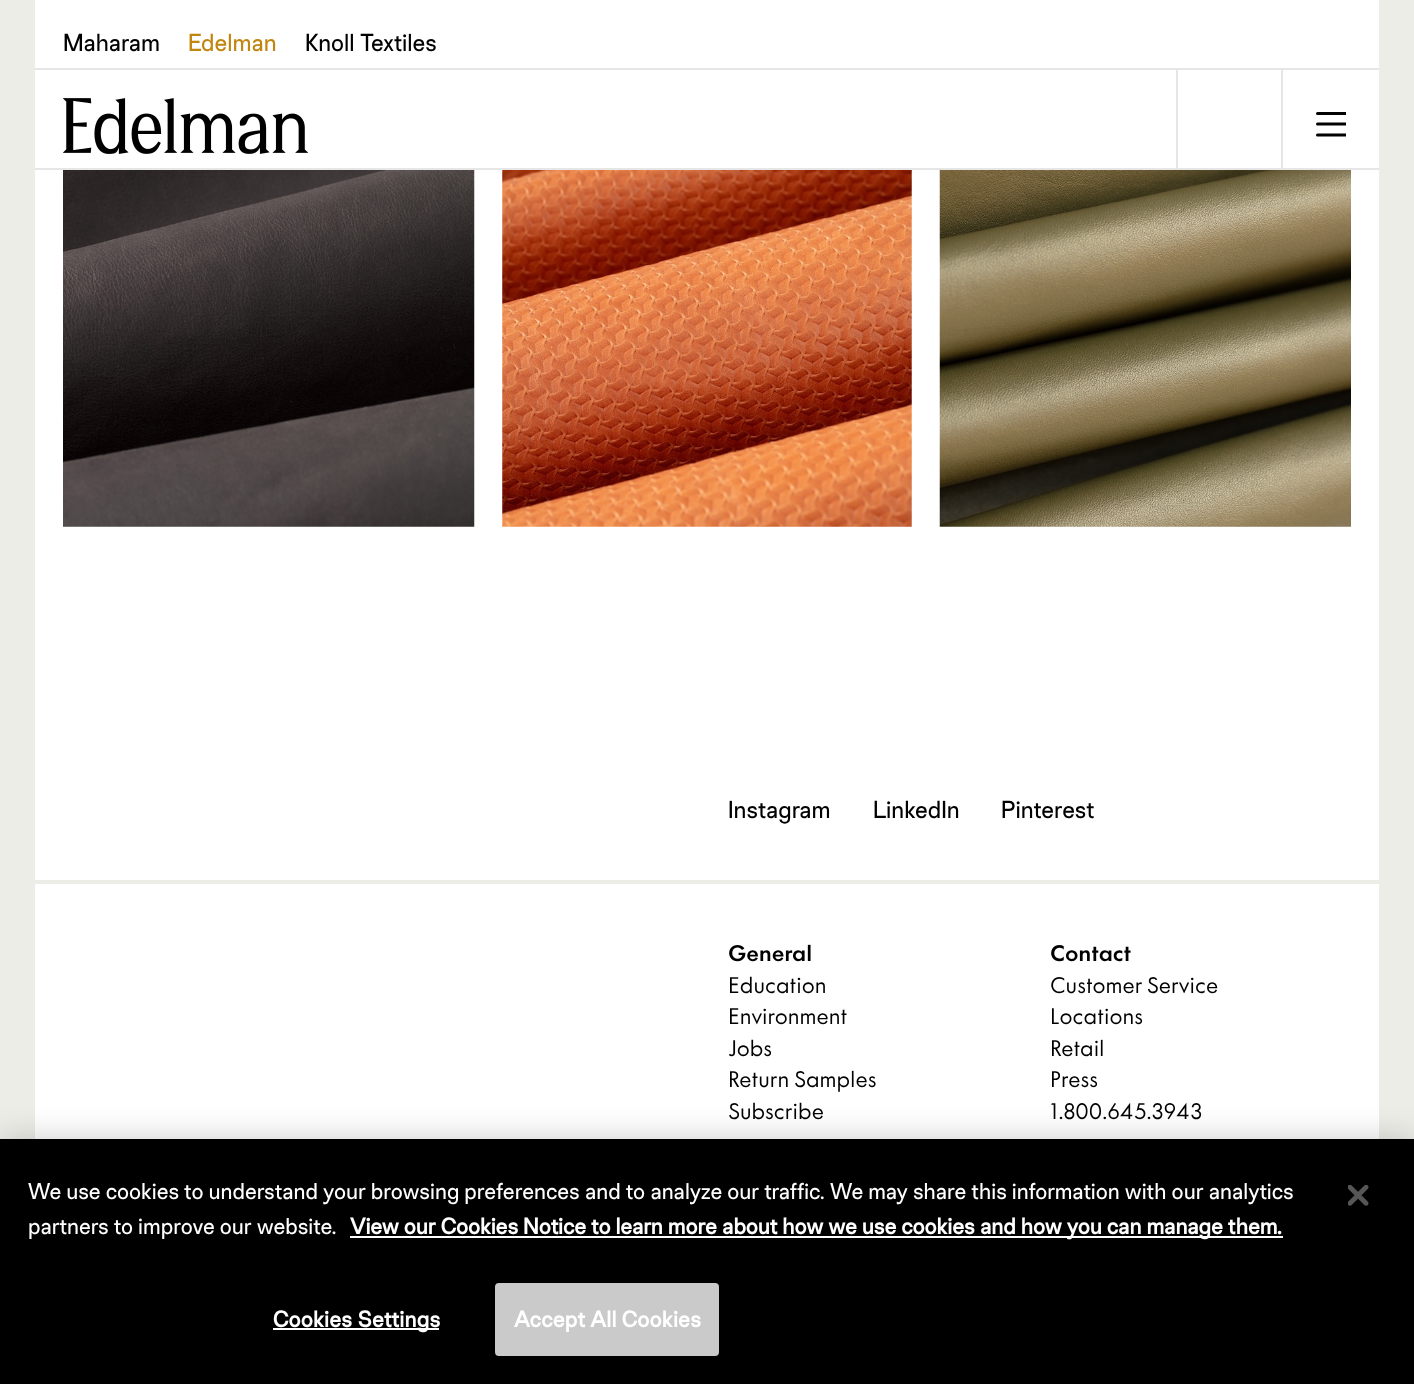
<!DOCTYPE html>
<meta charset="utf-8">
<style>body { margin: 0 } canvas { display: block }</style>
<canvas id="canvas" width="1414" height="1384"></canvas>
<script type="module">
  const canvas = document.getElementById("canvas");
  const ctx = canvas.getContext("2d");
  ctx.miterLimit = 4;
  ctx.fontKerning = "normal";
  async function loadImage(src) {
    const img = new Image();
    img.src = src;
    await img.decode();
    return img;
  }

  ctx.fillStyle = "#edede8";
  ctx.fillRect(0, 0, 1414, 1384);
  ctx.fillStyle = "#ffffff";
  ctx.fillRect(35, 0, 1344, 68);
  ctx.fillStyle = "#e6e6e6";
  ctx.fillRect(35, 68, 1344, 2);
  ctx.font = "24.5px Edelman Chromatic";
  ctx.fillStyle = "#000000";
  ctx.fillText("Maharam", 63, 51);
  ctx.fillStyle = "#c18610";
  ctx.fillText("Edelman", 188, 51);
  ctx.fillStyle = "#000000";
  ctx.fillText("Knoll Textiles", 305, 51);
  ctx.fillStyle = "#ffffff";
  ctx.fillRect(35, 70, 1344, 98);
  ctx.fillStyle = "#e6e6e6";
  ctx.fillRect(35, 168, 1344, 2);
  ctx.drawImage(await loadImage("img1.png"), 63, 98, 245, 56);
  ctx.fillRect(1176, 70, 2, 98);
  ctx.fillRect(1281, 70, 2, 98);
  ctx.save();
  ctx.beginPath();
  ctx.rect(1316, 112, 30, 25);
  ctx.clip();
  ctx.beginPath();
  ctx.moveTo(1317.5, 124);
  ctx.lineTo(1346, 124);
  ctx.moveTo(1317.5, 113.5);
  ctx.lineTo(1346, 113.5);
  ctx.moveTo(1317.5, 135);
  ctx.lineTo(1346, 135);
  ctx.strokeStyle = "#020202";
  ctx.lineWidth = 3;
  ctx.lineCap = "round";
  ctx.stroke();
  ctx.restore();
  ctx.fillStyle = "#ffffff";
  ctx.fillRect(35, 170, 1344, 710);
  ctx.drawImage(await loadImage("img2.png"), 63, 170, 412, 357);
  ctx.drawImage(await loadImage("img3.png"), 502, 170, 410, 357);
  ctx.drawImage(await loadImage("img4.png"), 939, 170, 412, 357);
  ctx.fillStyle = "#000000";
  ctx.fillText("Instagram", 728, 818);
  ctx.fillText("LinkedIn", 873, 818);
  ctx.fillText("Pinterest", 1001, 818);
  ctx.fillStyle = "#ffffff";
  ctx.fillRect(35, 884, 1344, 255);
  ctx.font = "500 21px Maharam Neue";
  ctx.fillStyle = "#000000";
  ctx.fillText("General", 728, 961);
  ctx.font = "21px Maharam Neue";
  ctx.fillText("Education", 728, 993);
  ctx.fillText("Environment", 728, 1024);
  ctx.fillText("Jobs", 728, 1056);
  ctx.fillText("Return Samples", 728, 1087);
  ctx.fillText("Subscribe", 728, 1119);
  ctx.font = "500 21px Maharam Neue";
  ctx.fillText("Contact", 1050, 961);
  ctx.font = "21px Maharam Neue";
  ctx.fillText("Customer Service", 1050, 993);
  ctx.fillText("Locations", 1050, 1024);
  ctx.fillText("Retail", 1050, 1056);
  ctx.fillText("Press", 1050, 1087);
  ctx.fillText("1.800.645.3943", 1050, 1119);
  ctx.fillStyle = "rgba(0, 0, 0, 0.2)";
  ctx.filter = "blur(16px)";
  ctx.beginPath();
  ctx.rect(0, 1139, 1414, 245);
  ctx.fill();
  ctx.filter = "none";
  ctx.fillStyle = "#000000";
  ctx.fillRect(0, 1139, 1414, 245);
  ctx.font = "22.75px Edelman Chromatic";
  ctx.fillStyle = "#fefffe";
  ctx.fillText("We use cookies to understand your browsing preferences and to analyze our traffic. We may share this information with our analytics", 28, 1199);
  ctx.fillText("partners to improve our website.", 28, 1234);
  ctx.fillRect(350, 1236, 933, 2);
  ctx.font = "bold 22.75px Edelman Chromatic";
  ctx.fillText("View our Cookies Notice to learn more about how we use cookies and how you can manage them.", 350, 1234);
  ctx.fillRect(273, 1328, 166, 2);
  ctx.letterSpacing = "0.25px";
  ctx.fillText("Cookies Settings", 273, 1327);
  ctx.fillStyle = "#cacaca";
  ctx.beginPath();
  ctx.roundRect(496, 1284, 222, 71, 3);
  ctx.fill();
  ctx.strokeStyle = "#cacaca";
  ctx.lineWidth = 2;
  ctx.stroke();
  ctx.fillStyle = "#fefffe";
  ctx.fillText("Accept All Cookies", 514, 1327);
  ctx.drawImage(await loadImage("img5.png"), 1348, 1185, 21, 21);
</script>
